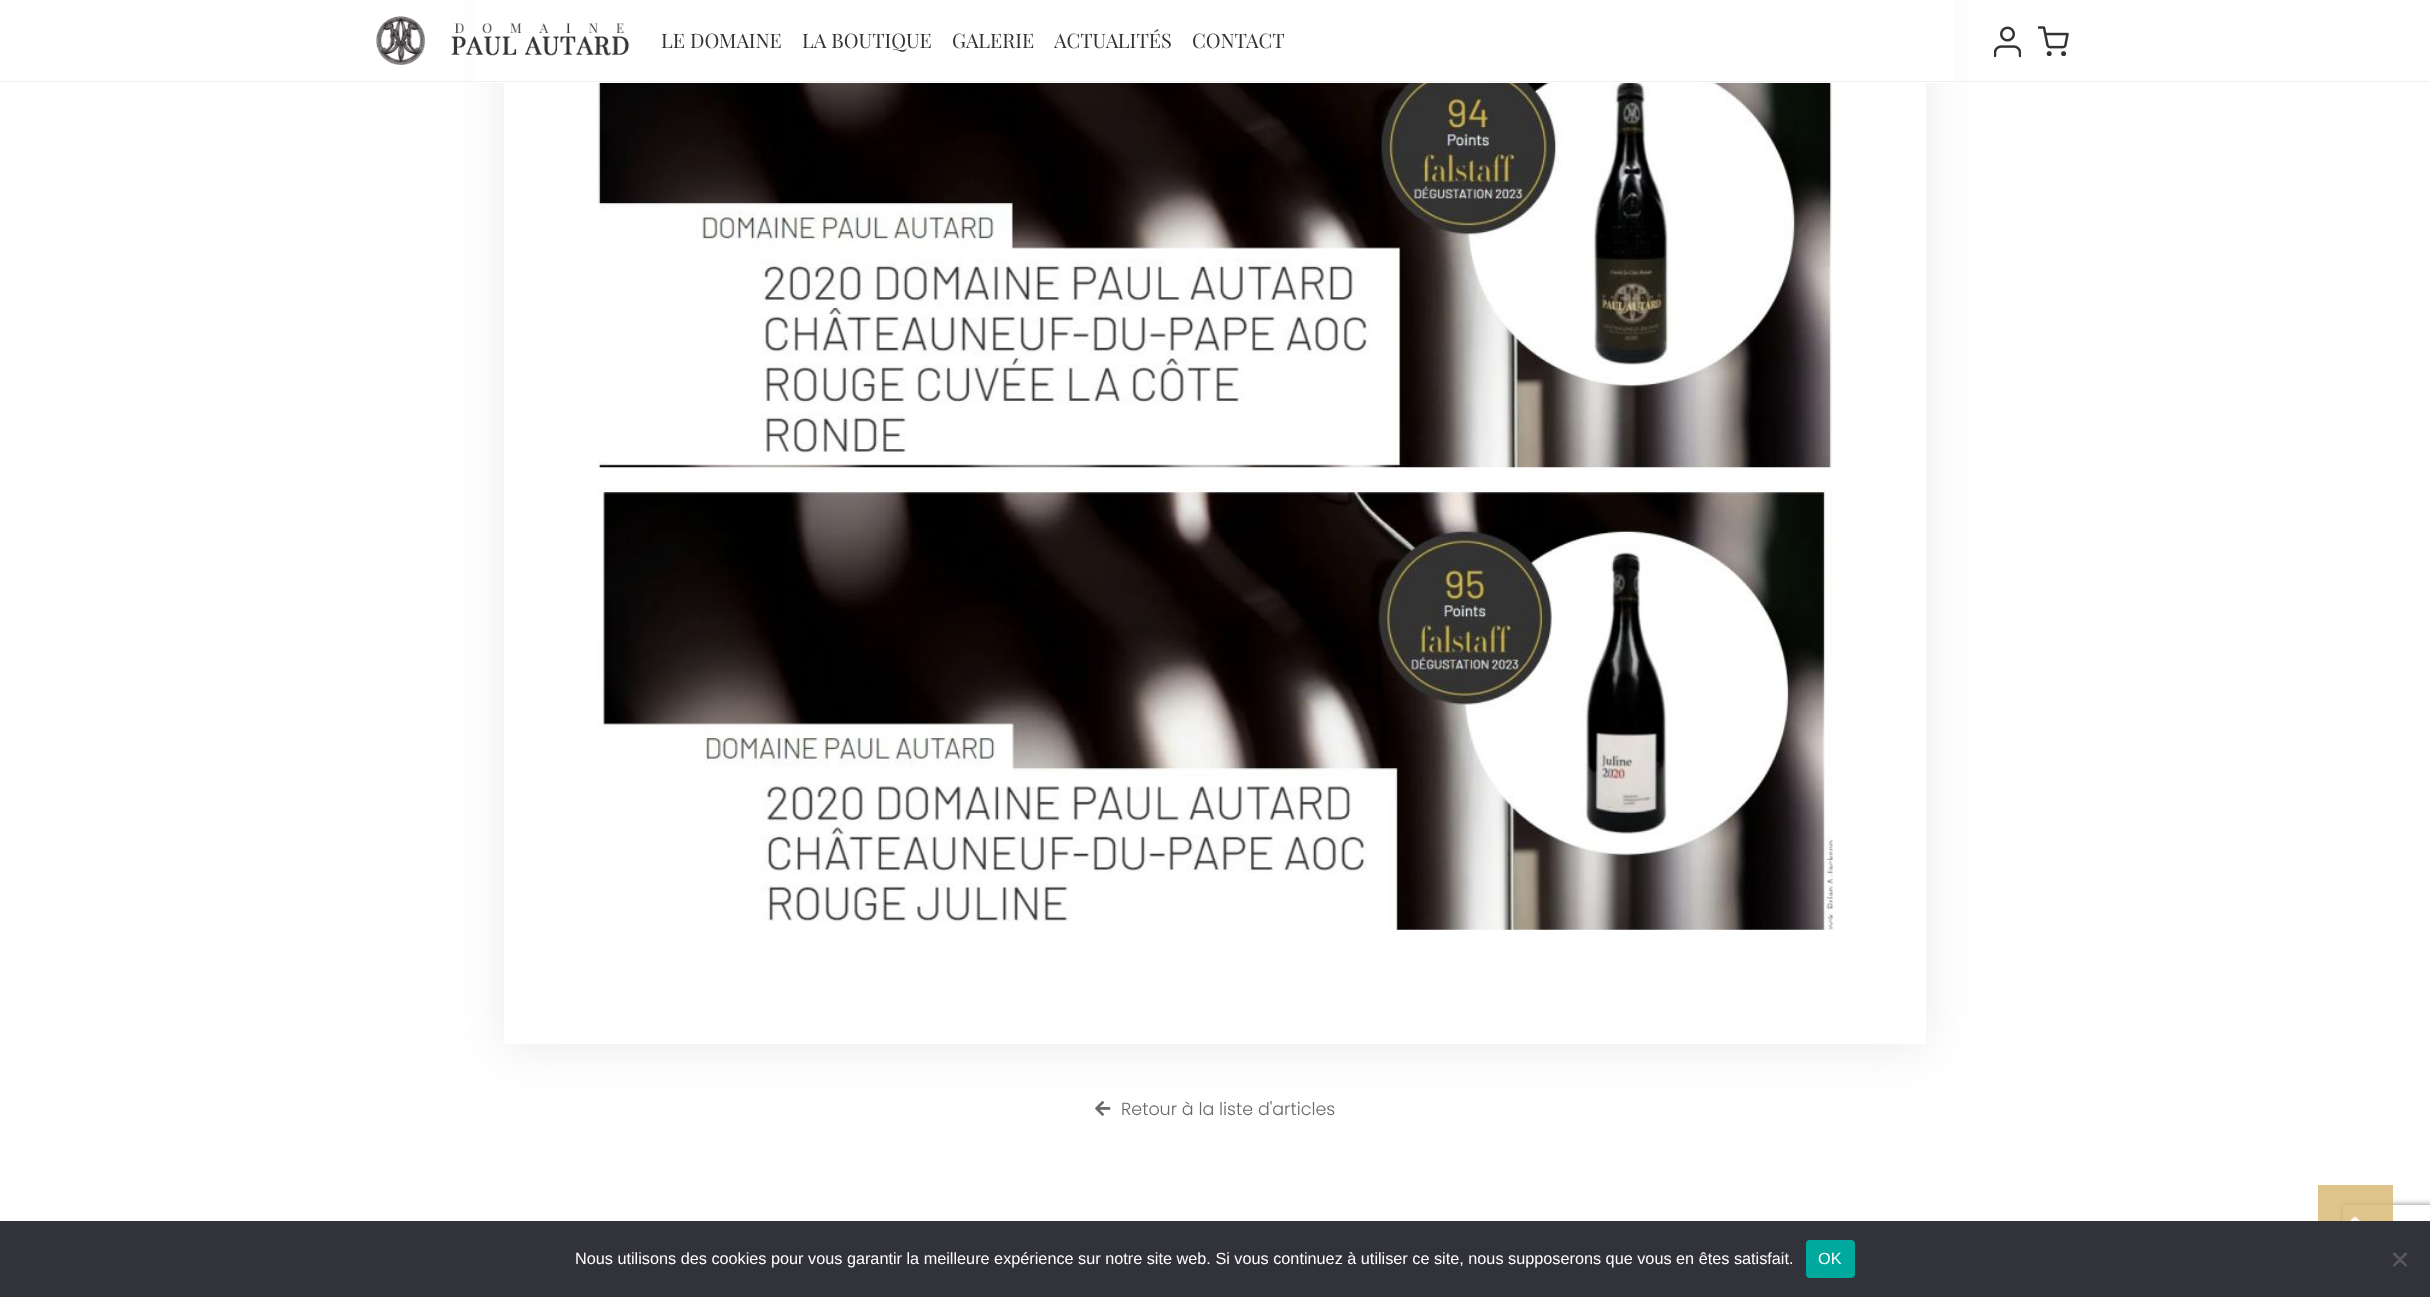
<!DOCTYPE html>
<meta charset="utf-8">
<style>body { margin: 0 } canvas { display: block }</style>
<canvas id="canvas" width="2430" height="1297"></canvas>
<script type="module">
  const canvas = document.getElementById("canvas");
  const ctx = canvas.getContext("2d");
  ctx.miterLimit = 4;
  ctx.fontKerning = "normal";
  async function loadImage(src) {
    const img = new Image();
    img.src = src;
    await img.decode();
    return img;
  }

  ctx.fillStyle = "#ffffff";
  ctx.fillRect(0, 0, 2430, 1297);
  ctx.fillStyle = "rgba(166, 166, 166, 0.23)";
  ctx.filter = "blur(25px)";
  ctx.beginPath();
  ctx.rect(504, -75, 1422, 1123);
  ctx.fill();
  ctx.filter = "none";
  ctx.fillStyle = "#ffffff";
  ctx.fillRect(475, 0, 1480, 83);
  ctx.fillStyle = "#f0f0f0";
  ctx.fillRect(0, 81, 2430, 1);
  ctx.drawImage(await loadImage("img1.png"), 376, 16, 254, 49);
  ctx.font = "20px Playfair Display";
  ctx.fillStyle = "#333333";
  ctx.fillText("LE DOMAINE", 661, 48);
  ctx.fillText("LA BOUTIQUE", 802, 48);
  ctx.fillText("GALERIE", 952, 48);
  ctx.fillText("ACTUALITÉS", 1054, 48);
  ctx.fillText("CONTACT", 1192, 48);
  ctx.drawImage(await loadImage("img2.png"), 1994, 26, 27, 32);
  ctx.drawImage(await loadImage("img3.png"), 2038, 26, 31, 30);
  ctx.fillStyle = "#ffffff";
  ctx.fillRect(504, 83, 1422, 961);
  ctx.drawImage(await loadImage("img4.png"), 597, 83, 1236, 385);
  ctx.drawImage(await loadImage("img5.png"), 597, 487, 1236, 443);
  ctx.drawImage(await loadImage("img6.png"), 1095, 1101, 16, 15);
  ctx.font = "300 17.5px Poppins";
  ctx.fillStyle = "#686868";
  ctx.fillText("Retour à la liste d'articles", 1121, 1115);
  ctx.save();
  ctx.beginPath();
  ctx.moveTo(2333, 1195);
  ctx.lineTo(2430, 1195);
  ctx.lineTo(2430, 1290);
  ctx.lineTo(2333, 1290);
  ctx.closePath();
  ctx.moveTo(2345.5, 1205);
  ctx.lineTo(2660.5, 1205);
  ctx.bezierCurveTo(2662, 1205, 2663, 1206, 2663, 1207.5);
  ctx.lineTo(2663, 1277.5);
  ctx.bezierCurveTo(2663, 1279, 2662, 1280, 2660.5, 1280);
  ctx.lineTo(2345.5, 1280);
  ctx.bezierCurveTo(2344, 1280, 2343, 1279, 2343, 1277.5);
  ctx.lineTo(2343, 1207.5);
  ctx.bezierCurveTo(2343, 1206, 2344, 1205, 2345.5, 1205);
  ctx.closePath();
  ctx.clip("evenodd");
  ctx.fillStyle = "#808080";
  ctx.filter = "blur(3px)";
  ctx.beginPath();
  ctx.roundRect(2343, 1205, 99, 75, 2.5);
  ctx.fill();
  ctx.filter = "none";
  ctx.restore();
  ctx.fillStyle = "rgba(215, 181, 110, 0.8)";
  ctx.fillRect(2318, 1185, 75, 36);
  ctx.drawImage(await loadImage("img7.png"), 2349, 1216, 12, 5);
  ctx.fillStyle = "#32323a";
  ctx.fillRect(0, 1221, 2430, 76);
  ctx.font = "16.25px Liberation Sans";
  ctx.fillStyle = "#ffffff";
  ctx.fillText("Nous utilisons des cookies pour vous garantir la meilleure expérience sur notre site web. Si vous continuez à utiliser ce site, nous supposerons que vous en êtes satisfait.", 575, 1264);
  ctx.fillStyle = "#00a99d";
  ctx.beginPath();
  ctx.roundRect(1806, 1240, 49, 38, 4);
  ctx.fill();
  ctx.fillStyle = "#ffffff";
  ctx.fillText("OK", 1818, 1264);
  ctx.fillStyle = "#59595d";
  ctx.beginPath();
  ctx.moveTo(2405.5, 1252);
  ctx.lineTo(2407.5, 1254);
  ctx.lineTo(2394.5, 1267);
  ctx.lineTo(2392.5, 1265.5);
  ctx.closePath();
  ctx.fill();
  ctx.beginPath();
  ctx.moveTo(2392.5, 1254);
  ctx.lineTo(2394.5, 1252);
  ctx.lineTo(2407.5, 1265.5);
  ctx.lineTo(2405.5, 1267);
  ctx.closePath();
  ctx.fill();
</script>
